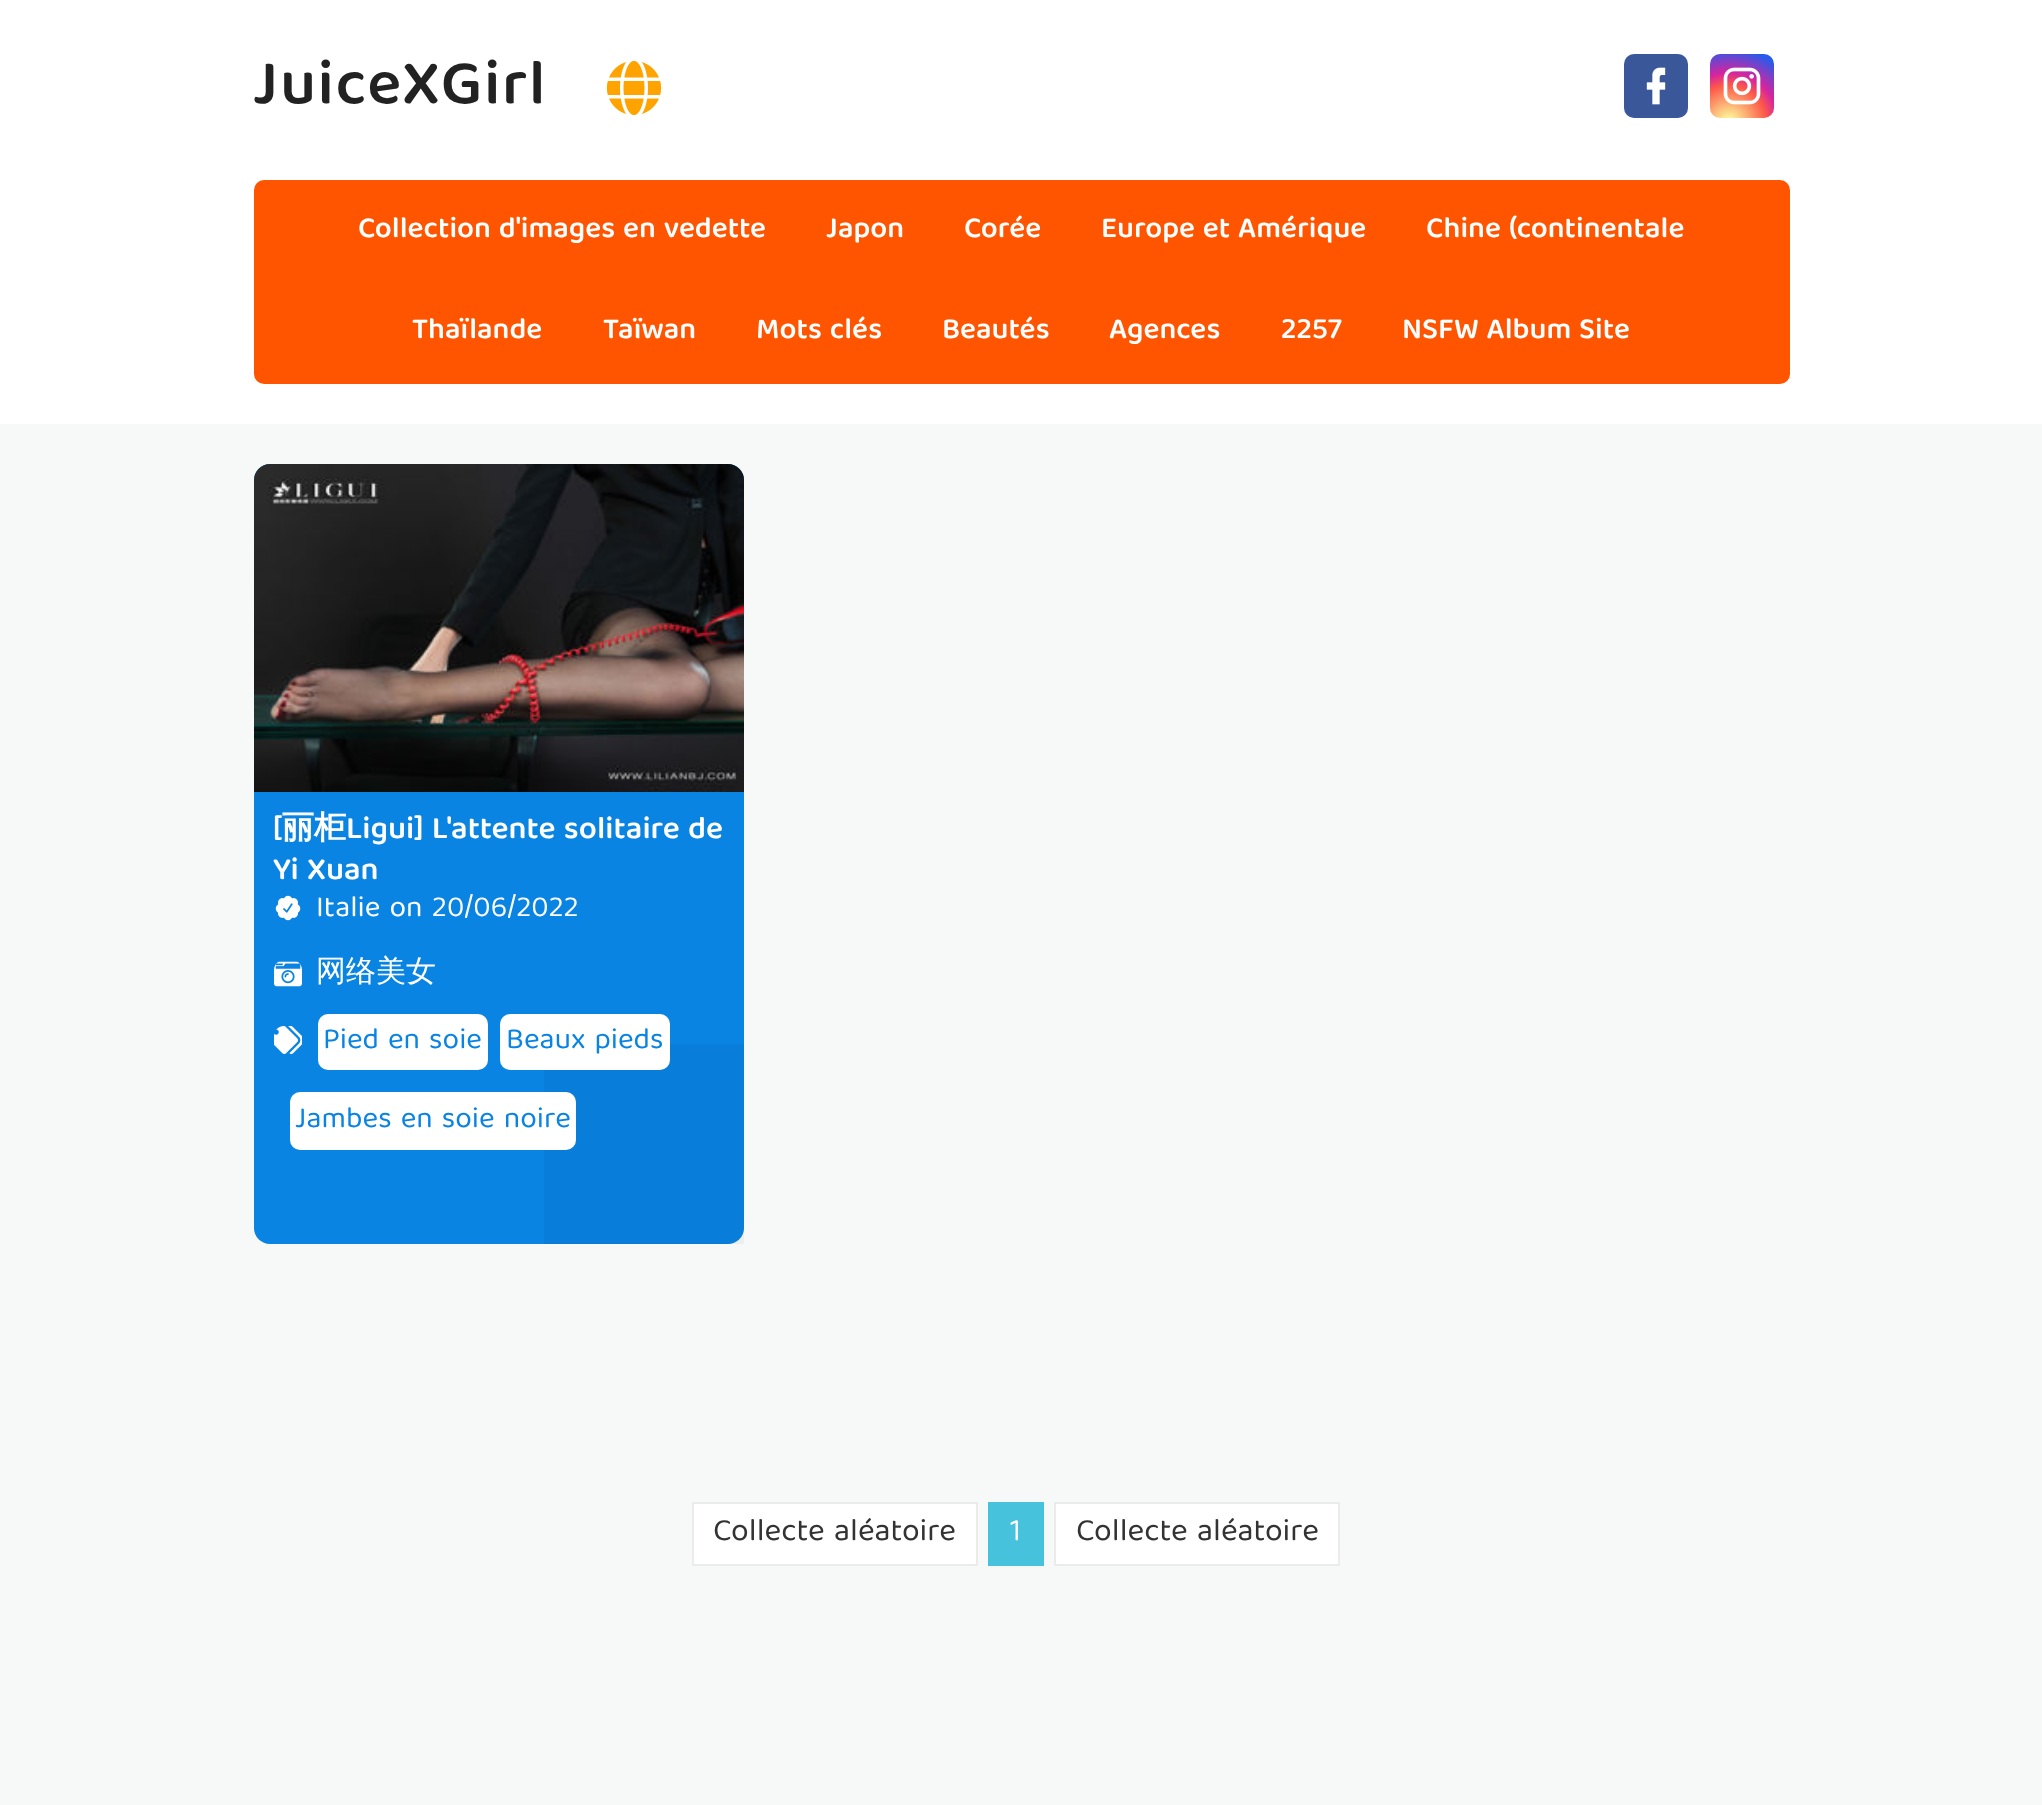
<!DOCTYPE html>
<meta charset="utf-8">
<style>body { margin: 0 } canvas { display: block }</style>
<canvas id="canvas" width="2042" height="1805"></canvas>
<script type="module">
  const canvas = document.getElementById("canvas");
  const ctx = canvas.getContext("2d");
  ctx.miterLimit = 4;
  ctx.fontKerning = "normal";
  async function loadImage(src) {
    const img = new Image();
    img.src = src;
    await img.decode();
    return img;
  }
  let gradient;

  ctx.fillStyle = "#f7f9f8";
  ctx.fillRect(0, 0, 2042, 1805);
  ctx.fillStyle = "#ffffff";
  ctx.fillRect(0, 0, 2042, 424);
  ctx.letterSpacing = "1.6px";
  ctx.font = "600 64px 'Baloo Tamma 2'";
  ctx.fillStyle = "#222222";
  ctx.fillText("JuiceXGirl", 253, 103);
  ctx.drawImage(await loadImage("img1.png"), 606, 60, 56, 56);
  ctx.fillStyle = "#3a579a";
  ctx.beginPath();
  ctx.roundRect(1624, 54, 64, 64, 10);
  ctx.fill();
  ctx.drawImage(await loadImage("img2.png"), 1646, 67, 20, 38);
  gradient = ctx.createRadialGradient(1729, 122, 0, 1729, 122, 82);
  gradient.addColorStop(0, "#fdf497");
  gradient.addColorStop(0.05, "#fdf497");
  gradient.addColorStop(0.45, "#fd5949");
  gradient.addColorStop(0.6, "#d6249f");
  gradient.addColorStop(0.9, "#285aeb");
  ctx.fillStyle = gradient;
  ctx.beginPath();
  ctx.roundRect(1710, 54, 64, 64, 10);
  ctx.fill();
  ctx.drawImage(await loadImage("img3.png"), 1723, 67, 38, 38);
  ctx.fillStyle = "#ff5500";
  ctx.beginPath();
  ctx.roundRect(254, 180, 1536, 204, 10);
  ctx.fill();
  ctx.letterSpacing = "0px";
  ctx.font = "600 30px 'Baloo Tamma 2'";
  ctx.fillStyle = "#ffffff";
  ctx.fillText("Collection d'images en vedette", 358, 237);
  ctx.fillText("Japon", 826, 237);
  ctx.fillText("Corée", 964, 237);
  ctx.fillText("Europe et Amérique", 1101, 237);
  ctx.fillText("Chine (continentale", 1426, 237);
  ctx.fillText("Thaïlande", 412, 338);
  ctx.fillText("Taïwan", 603, 338);
  ctx.fillText("Mots clés", 756, 338);
  ctx.fillText("Beautés", 942, 338);
  ctx.fillText("Agences", 1109, 338);
  ctx.fillText("2257", 1281, 338);
  ctx.fillText("NSFW Album Site", 1402, 338);
  ctx.fillStyle = "#0984e3";
  ctx.beginPath();
  ctx.roundRect(254, 464, 490, 780, 16);
  ctx.fill();
  ctx.drawImage(await loadImage("img4.png"), 254, 464, 490, 328);
  ctx.font = "600 32px 'Baloo Tamma 2'";
  ctx.fillStyle = "#ffffff";
  ctx.fillText("[", 273, 838);
  ctx.font = "bold 32px WenQuanYi Zen Hei";
  ctx.fillText("丽柜", 282, 838);
  ctx.font = "600 32px 'Baloo Tamma 2'";
  ctx.fillText("Ligui] L'attente solitaire de", 346, 838);
  ctx.fillText("Yi Xuan", 273, 879);
  ctx.drawImage(await loadImage("img5.png"), 275, 895, 26, 26);
  ctx.font = "30px 'Baloo Tamma 2'";
  ctx.fillText("Italie on", 316, 916);
  ctx.save();
  ctx.beginPath();
  ctx.rect(274, 894, 450, 28);
  ctx.clip();
  ctx.fillText("20/06/2022", 432, 916);
  ctx.restore();
  ctx.drawImage(await loadImage("img6.png"), 274, 961, 28, 26);
  ctx.font = "500 30px WenQuanYi Zen Hei";
  ctx.fillText("网络美女", 316, 981);
  ctx.drawImage(await loadImage("img7.png"), 274, 1026, 28, 28);
  ctx.beginPath();
  ctx.roundRect(318, 1014, 170, 56, 10);
  ctx.fill();
  ctx.font = "30px 'Baloo Tamma 2'";
  ctx.fillStyle = "#0984e3";
  ctx.fillText("Pied en soie", 323, 1048);
  ctx.fillStyle = "rgba(0, 0, 0, 0.04)";
  ctx.fillRect(544, 1044, 200, 200);
  ctx.fillStyle = "#ffffff";
  ctx.beginPath();
  ctx.roundRect(500, 1014, 170, 56, 10);
  ctx.fill();
  ctx.fillStyle = "#0984e3";
  ctx.fillText("Beaux pieds", 506, 1048);
  ctx.fillStyle = "#ffffff";
  ctx.beginPath();
  ctx.roundRect(290, 1092, 286, 58, 10);
  ctx.fill();
  ctx.fillStyle = "#0984e3";
  ctx.fillText("Jambes en soie noire", 295, 1127);
  ctx.fillStyle = "#ffffff";
  ctx.beginPath();
  ctx.rect(693, 1503, 284, 62);
  ctx.fill();
  ctx.strokeStyle = "#ebebeb";
  ctx.lineWidth = 2;
  ctx.stroke();
  ctx.font = "32px 'Baloo Tamma 2'";
  ctx.fillStyle = "#333333";
  ctx.fillText("Collecte aléatoire", 713, 1540);
  ctx.fillStyle = "#47c2dc";
  ctx.fillRect(988, 1502, 56, 64);
  ctx.fillStyle = "#ffffff";
  ctx.fillText("1", 1010, 1540);
  ctx.beginPath();
  ctx.rect(1055, 1503, 284, 62);
  ctx.fill();
  ctx.stroke();
  ctx.fillStyle = "#333333";
  ctx.fillText("Collecte aléatoire", 1076, 1540);
</script>
